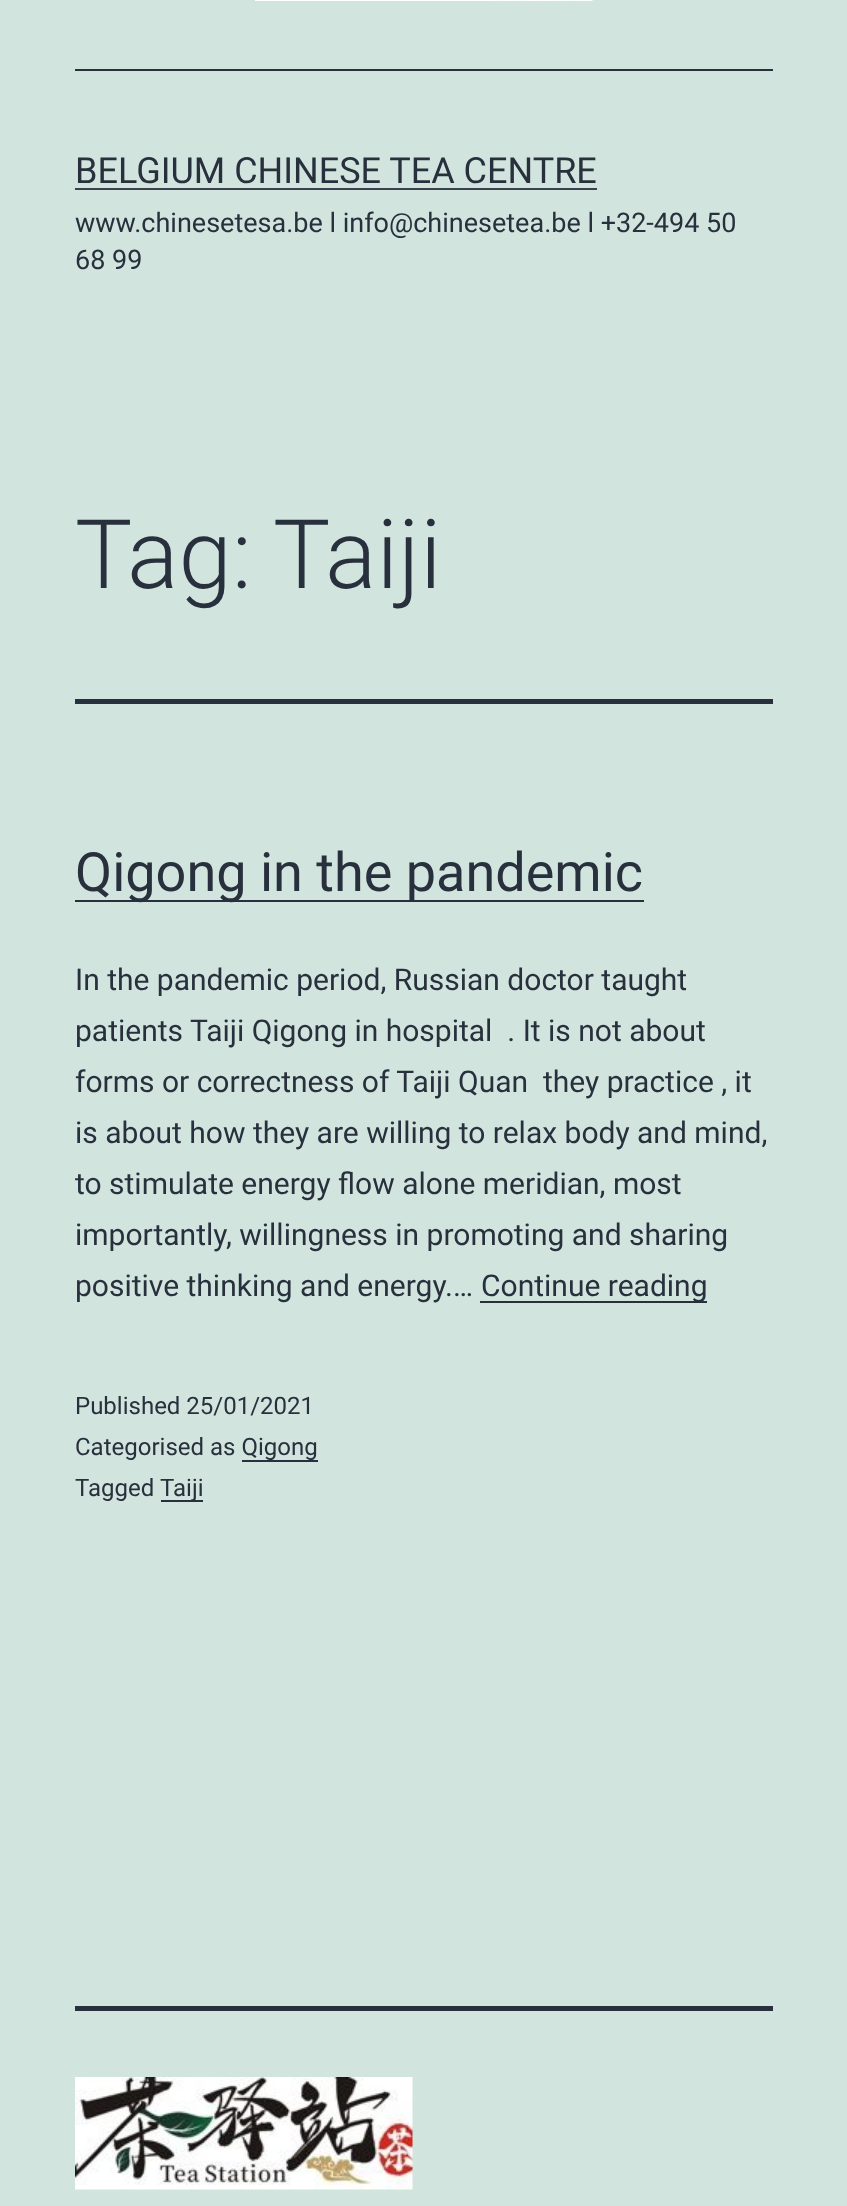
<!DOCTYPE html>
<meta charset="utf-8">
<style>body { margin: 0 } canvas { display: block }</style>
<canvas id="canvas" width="847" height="2206"></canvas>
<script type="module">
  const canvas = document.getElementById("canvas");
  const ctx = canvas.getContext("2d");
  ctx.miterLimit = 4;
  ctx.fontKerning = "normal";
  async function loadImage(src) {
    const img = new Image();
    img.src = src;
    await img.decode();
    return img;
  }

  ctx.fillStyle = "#d1e4dd";
  ctx.fillRect(0, 0, 847, 2206);
  ctx.fillStyle = "#28303d";
  ctx.fillRect(75, 69, 698, 2);
  ctx.drawImage(await loadImage("img1.png"), 255, 0, 338, 1);
  ctx.font = "36px Roboto";
  ctx.fillText("BELGIUM CHINESE TEA CENTRE", 75, 183);
  ctx.fillStyle = "#39414d";
  ctx.fillRect(75, 188, 522, 2);
  ctx.font = "27px Roboto";
  ctx.fillStyle = "#28303d";
  ctx.fillText("www.chinesetesa.be l info@chinesetea.be l +32-494 50", 75, 232);
  ctx.fillText("68 99", 75, 269);
  ctx.fillRect(75, 699, 698, 5);
  ctx.font = "300 96px Roboto";
  ctx.fillText("Tag:", 75, 588);
  ctx.fillText("Taiji", 273, 588);
  ctx.fillRect(75, 900, 569, 2);
  ctx.font = "54px Roboto";
  ctx.fillText("Qigong in the pandemic", 75, 891);
  ctx.font = "30px Roboto";
  ctx.fillText("In the pandemic period, Russian doctor taught", 75, 990);
  ctx.fillText("patients Taiji Qigong in hospital  . It is not about", 75, 1041);
  ctx.fillText("forms or correctness of Taiji Quan  they practice , it", 75, 1092);
  ctx.fillText("is about how they are willing to relax body and mind,", 75, 1143);
  ctx.fillText("to stimulate energy flow alone meridian, most", 75, 1194);
  ctx.fillText("importantly, willingness in promoting and sharing", 75, 1245);
  ctx.fillText("positive thinking and energy.…", 75, 1296);
  ctx.fillRect(480, 1301, 227, 2);
  ctx.fillText("Continue reading", 481, 1296);
  ctx.font = "24px Roboto";
  ctx.fillText("Published 25/01/2021", 75, 1414);
  ctx.fillText("Categorised as Qigong", 75, 1455);
  ctx.fillRect(242, 1460, 76, 2);
  ctx.fillText("Tagged", 75, 1496);
  ctx.fillRect(161, 1500, 42, 2);
  ctx.fillText("Taiji", 160, 1496);
  ctx.fillRect(75, 2006, 698, 5);
  ctx.drawImage(await loadImage("img2.png"), 75, 2077, 338, 113);
</script>
